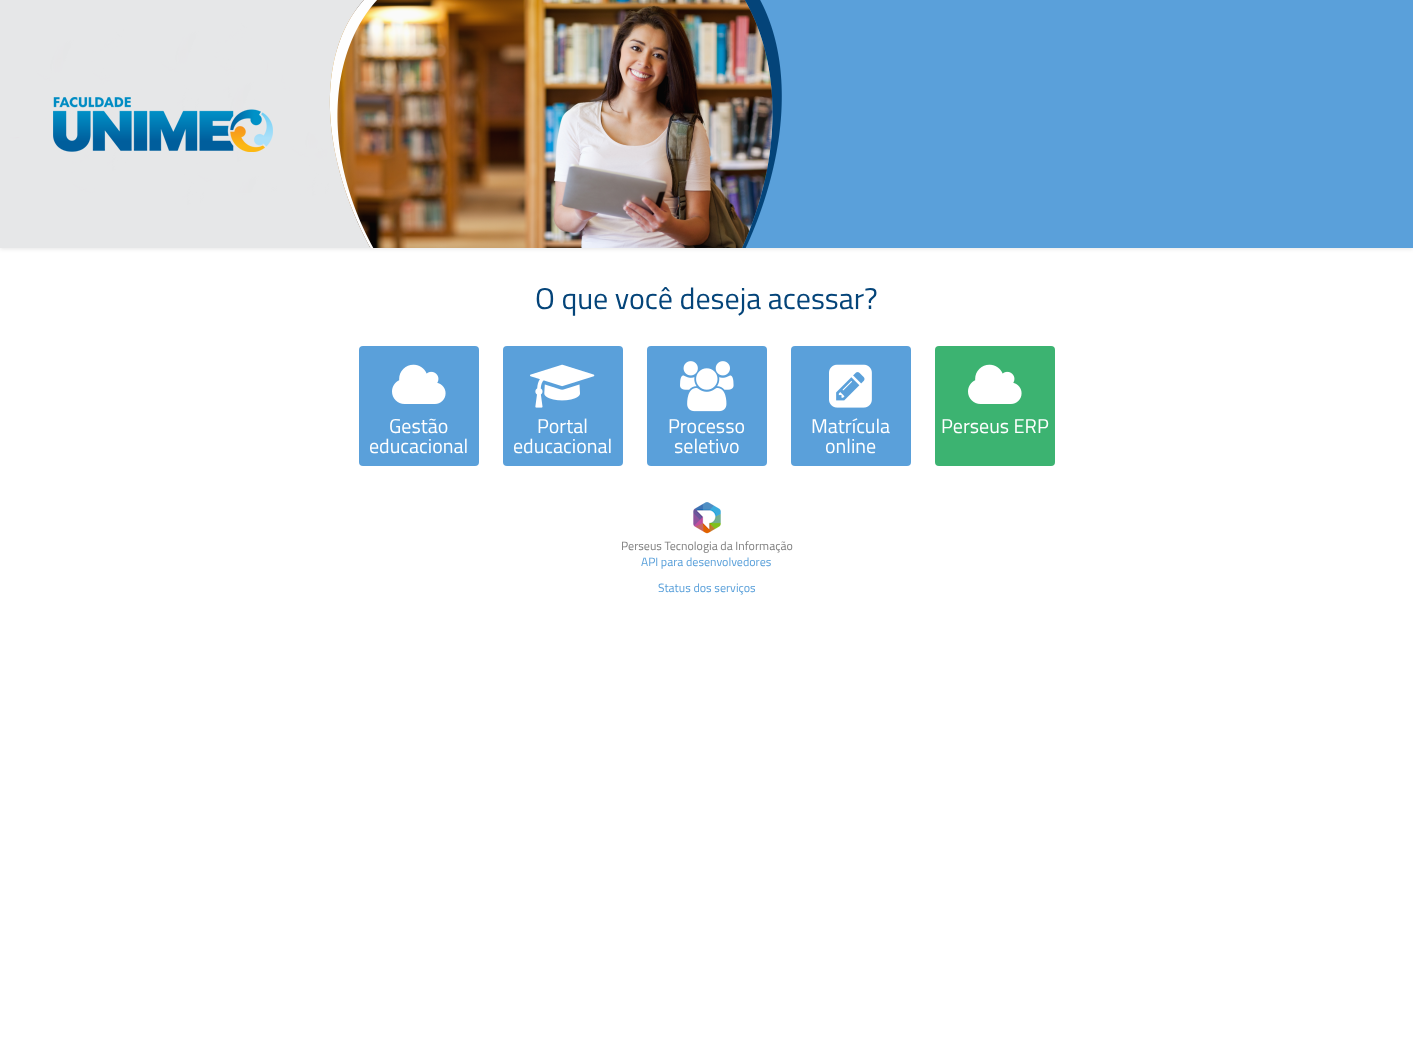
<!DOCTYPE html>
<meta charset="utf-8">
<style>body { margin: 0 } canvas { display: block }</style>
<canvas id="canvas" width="1413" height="1044"></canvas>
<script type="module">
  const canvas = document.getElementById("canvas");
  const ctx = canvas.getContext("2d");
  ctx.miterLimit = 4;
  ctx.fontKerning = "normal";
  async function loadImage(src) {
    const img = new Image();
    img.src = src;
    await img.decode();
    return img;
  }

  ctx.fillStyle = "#ffffff";
  ctx.fillRect(0, 0, 1413, 1044);
  ctx.fillStyle = "rgba(0, 0, 0, 0.1)";
  ctx.filter = "blur(2px)";
  ctx.beginPath();
  ctx.rect(0, 1, 1413, 248);
  ctx.fill();
  ctx.filter = "none";
  ctx.fillStyle = "#5aa0da";
  ctx.fillRect(742, 0, 671, 248);
  ctx.drawImage(await loadImage("img1.png"), 0, 0, 782, 248);
  ctx.font = "30px Titillium Web";
  ctx.fillStyle = "#044479";
  ctx.fillText("O que você deseja acessar?", 535, 309);
  ctx.fillStyle = "#5aa0da";
  ctx.beginPath();
  ctx.roundRect(359, 346, 120, 120, 4);
  ctx.fill();
  ctx.drawImage(await loadImage("img2.png"), 392, 364, 54, 40);
  ctx.font = "20px Titillium Web";
  ctx.fillStyle = "#ffffff";
  ctx.fillText("Gestão", 389, 433);
  ctx.fillText("educacional", 369, 453);
  ctx.fillStyle = "#5aa0da";
  ctx.beginPath();
  ctx.roundRect(503, 346, 120, 120, 4);
  ctx.fill();
  ctx.drawImage(await loadImage("img3.png"), 530, 364, 65, 44);
  ctx.fillStyle = "#ffffff";
  ctx.fillText("Portal", 537, 433);
  ctx.fillText("educacional", 513, 453);
  ctx.fillStyle = "#5aa0da";
  ctx.beginPath();
  ctx.roundRect(647, 346, 120, 120, 4);
  ctx.fill();
  ctx.drawImage(await loadImage("img4.png"), 680, 361, 54, 51);
  ctx.fillStyle = "#ffffff";
  ctx.fillText("Processo", 668, 433);
  ctx.fillText("seletivo", 674, 453);
  ctx.fillStyle = "#5aa0da";
  ctx.beginPath();
  ctx.roundRect(791, 346, 120, 120, 4);
  ctx.fill();
  ctx.drawImage(await loadImage("img5.png"), 829, 364, 43, 44);
  ctx.fillStyle = "#ffffff";
  ctx.fillText("Matrícula", 811, 433);
  ctx.fillText("online", 825, 453);
  ctx.fillStyle = "#3cb371";
  ctx.beginPath();
  ctx.roundRect(935, 346, 120, 120, 4);
  ctx.fill();
  ctx.drawImage(await loadImage("img6.png"), 968, 364, 54, 40);
  ctx.fillStyle = "#ffffff";
  ctx.fillText("Perseus ERP", 941, 433);
  ctx.drawImage(await loadImage("img7.png"), 693, 502, 28, 32);
  ctx.font = "12px Titillium Web";
  ctx.fillStyle = "#808080";
  ctx.fillText("Perseus Tecnologia da Informação", 621, 550);
  ctx.fillStyle = "#5aa0da";
  ctx.fillText("API para desenvolvedores", 641, 566);
  ctx.fillText("Status dos serviços", 658, 592);
</script>
